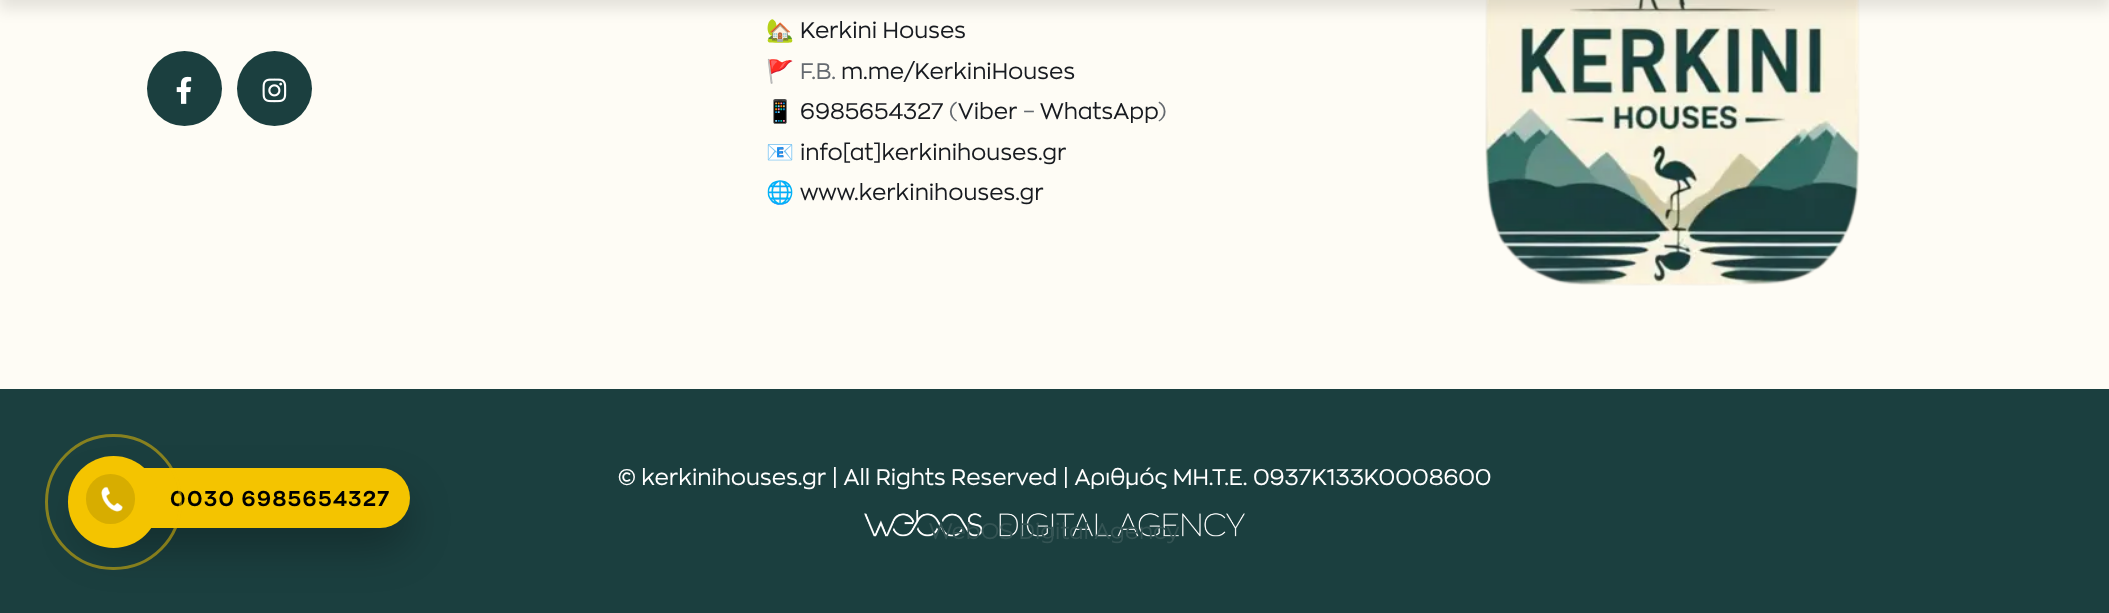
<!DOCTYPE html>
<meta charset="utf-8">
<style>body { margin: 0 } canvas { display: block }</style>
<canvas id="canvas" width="2109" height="613"></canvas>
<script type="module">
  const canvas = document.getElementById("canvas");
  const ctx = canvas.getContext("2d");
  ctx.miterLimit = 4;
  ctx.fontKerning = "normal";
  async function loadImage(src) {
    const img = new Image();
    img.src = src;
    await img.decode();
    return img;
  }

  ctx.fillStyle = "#fefcf5";
  ctx.fillRect(0, 0, 2109, 613);
  ctx.fillStyle = "#1b3f3f";
  ctx.fillRect(0, 389, 2109, 224);
  ctx.fillStyle = "rgba(0, 0, 0, 0.25)";
  ctx.filter = "blur(21px)";
  ctx.beginPath();
  ctx.roundRect(80, 489, 330, 60, 30);
  ctx.fill();
  ctx.filter = "none";
  ctx.fillStyle = "#f4c400";
  ctx.beginPath();
  ctx.roundRect(80, 468, 330, 60, 30);
  ctx.fill();
  ctx.letterSpacing = "1.5px";
  ctx.font = "bold 21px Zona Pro";
  ctx.fillStyle = "#000000";
  ctx.fillText("0030 6985654327", 170, 506);
  ctx.beginPath();
  ctx.roundRect(46.5, 435.5, 134, 133, 66.5);
  ctx.strokeStyle = "rgba(244, 196, 0, 0.5)";
  ctx.lineWidth = 3;
  ctx.stroke();
  ctx.fillStyle = "#f4c400";
  ctx.beginPath();
  ctx.roundRect(68, 456, 91, 92, 45.5);
  ctx.fill();
  ctx.fillStyle = "#d7ad00";
  ctx.beginPath();
  ctx.roundRect(86, 474, 49, 50, 24.5);
  ctx.fill();
  ctx.drawImage(await loadImage("img1.png"), 101, 486, 22, 26);
  ctx.drawImage(await loadImage("img4.png"), 1485, 0, 375, 286);
  ctx.fillStyle = "rgba(0, 0, 0, 0.1)";
  ctx.filter = "blur(7.5px)";
  ctx.beginPath();
  ctx.rect(-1, -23, 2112, 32);
  ctx.fill();
  ctx.filter = "none";
  ctx.fillStyle = "#1b3f3f";
  ctx.beginPath();
  ctx.arc(184.5, 88.5, 37.5, 0, Math.PI * 2);
  ctx.fill();
  ctx.drawImage(await loadImage("img2.png"), 176, 76, 16, 28);
  ctx.beginPath();
  ctx.arc(274.5, 88.5, 37.5, 0, Math.PI * 2);
  ctx.fill();
  ctx.drawImage(await loadImage("img3.png"), 262, 78, 25, 25);
  ctx.letterSpacing = "0px";
  ctx.font = "22.5px Noto Color Emoji";
  ctx.fillStyle = "#656a70";
  ctx.fillText("🏡", 766, 38);
  ctx.font = "22.5px Zona Pro";
  ctx.fillStyle = "#181b20";
  ctx.fillText("Kerkini Houses", 800, 38);
  ctx.font = "22.5px Noto Color Emoji";
  ctx.fillStyle = "#656a70";
  ctx.fillText("🚩", 766, 79);
  ctx.font = "22.5px Zona Pro";
  ctx.fillText("F.B.", 800, 79);
  ctx.fillStyle = "#181b20";
  ctx.fillText("m.me/KerkiniHouses", 841, 79);
  ctx.font = "22.5px Noto Color Emoji";
  ctx.fillStyle = "#656a70";
  ctx.fillText("📱", 766, 119);
  ctx.font = "22.5px Zona Pro";
  ctx.fillStyle = "#181b20";
  ctx.fillText("6985654327", 800, 119);
  ctx.fillStyle = "#656a70";
  ctx.fillText("(", 949, 119);
  ctx.fillStyle = "#181b20";
  ctx.fillText("Viber", 958, 119);
  ctx.fillStyle = "#656a70";
  ctx.fillText("–", 1023, 119);
  ctx.fillStyle = "#181b20";
  ctx.fillText("WhatsApp", 1040, 119);
  ctx.fillStyle = "#656a70";
  ctx.fillText(")", 1158, 119);
  ctx.font = "22.5px Noto Color Emoji";
  ctx.fillText("📧", 766, 160);
  ctx.font = "22.5px Zona Pro";
  ctx.fillStyle = "#181b20";
  ctx.fillText("info[at]kerkinihouses.gr", 800, 160);
  ctx.font = "22.5px Noto Color Emoji";
  ctx.fillStyle = "#656a70";
  ctx.fillText("🌐", 766, 200);
  ctx.font = "22.5px Zona Pro";
  ctx.fillStyle = "#181b20";
  ctx.fillText("www.kerkinihouses.gr", 800, 200);
  ctx.fillStyle = "#ffffff";
  ctx.fillText("© kerkinihouses.gr | All Rights Reserved | Αριθμός ΜΗ.Τ.Ε. 0937Κ133Κ0008600", 618, 485);
  ctx.drawImage(await loadImage("img5.png"), 864, 510, 381, 27);
  ctx.fillStyle = "#355454";
  ctx.fillText("WebOS Digital Agency", 929, 539);
</script>
